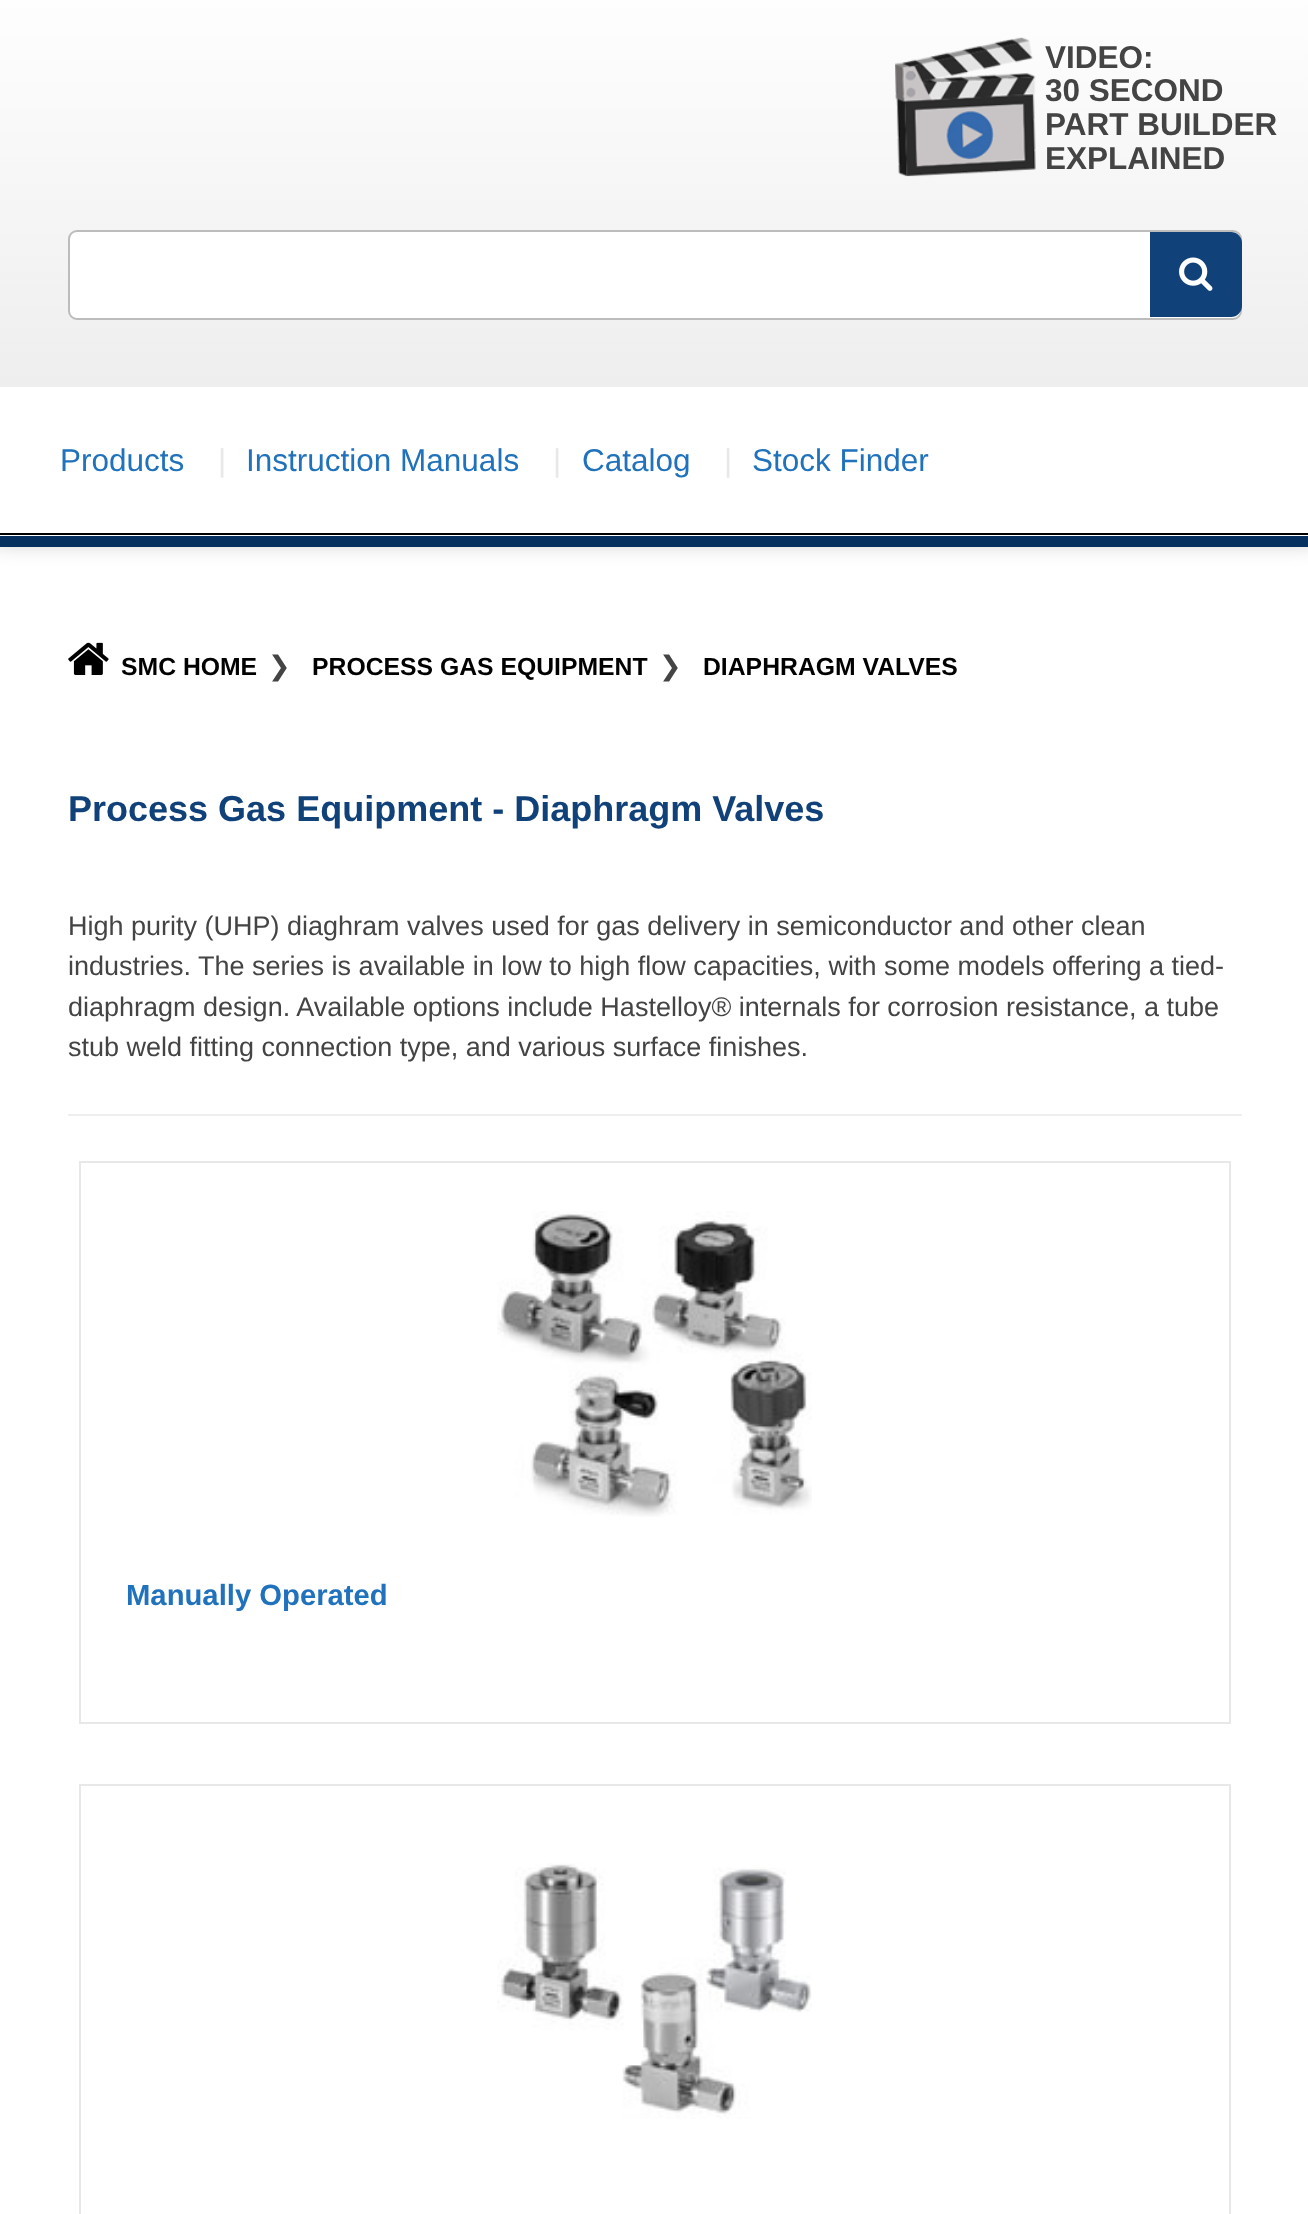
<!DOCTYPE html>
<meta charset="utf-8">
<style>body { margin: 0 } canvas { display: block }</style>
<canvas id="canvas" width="1308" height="2214"></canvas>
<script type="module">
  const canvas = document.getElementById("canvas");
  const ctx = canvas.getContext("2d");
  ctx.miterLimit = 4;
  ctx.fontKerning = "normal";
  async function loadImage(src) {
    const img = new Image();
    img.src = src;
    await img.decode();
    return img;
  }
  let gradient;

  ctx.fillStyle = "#ffffff";
  ctx.fillRect(0, 0, 1308, 2214);
  ctx.fillStyle = "rgba(0, 0, 0, 0.25)";
  ctx.filter = "blur(11px)";
  ctx.beginPath();
  ctx.rect(-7, -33, 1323, 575);
  ctx.fill();
  ctx.filter = "none";
  gradient = ctx.createLinearGradient(655, -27, 655, 533);
  gradient.addColorStop(0, "#ffffff");
  gradient.addColorStop(1, "#e8e8e8");
  ctx.fillStyle = gradient;
  ctx.fillRect(0, 0, 1308, 387);
  gradient = ctx.createLinearGradient(655, 533, 655, 1094);
  gradient.addColorStop(0, "#ffffff");
  gradient.addColorStop(1, "#e8e8e8");
  ctx.fillStyle = gradient;
  ctx.fillRect(0, 535, 1308, 1);
  ctx.fillStyle = "#000000";
  ctx.fillRect(0, 533, 1308, 2);
  ctx.drawImage(await loadImage("img1.png"), 895, 37, 141, 140);
  ctx.font = "bold 31.5px Liberation Sans";
  ctx.fillStyle = "#444444";
  ctx.fillText("VIDEO:", 1045, 68);
  ctx.fillText("30 SECOND", 1045, 101);
  ctx.fillText("PART BUILDER", 1045, 135);
  ctx.fillText("EXPLAINED", 1045, 169);
  ctx.fillStyle = "#ffffff";
  ctx.beginPath();
  ctx.roundRect(69, 231, 1172, 88, 8);
  ctx.fill();
  ctx.strokeStyle = "#bcbcbc";
  ctx.lineWidth = 2;
  ctx.stroke();
  ctx.fillStyle = "#104179";
  ctx.beginPath();
  ctx.roundRect(1151, 233, 90, 83, [0, 10, 10, 0]);
  ctx.fill();
  ctx.strokeStyle = "#104179";
  ctx.stroke();
  ctx.drawImage(await loadImage("img2.png"), 1179, 257, 34, 34);
  ctx.fillStyle = "#ffffff";
  ctx.fillRect(0, 387, 1308, 146);
  ctx.font = "31.5px Liberation Sans";
  ctx.fillStyle = "#2072bc";
  ctx.fillText("Products", 60, 471);
  ctx.fillStyle = "#e8e8e8";
  ctx.fillText("|", 218, 471);
  ctx.fillStyle = "#2072bc";
  ctx.fillText("Instruction Manuals", 246, 471);
  ctx.fillStyle = "#e8e8e8";
  ctx.fillText("|", 553, 471);
  ctx.fillStyle = "#2072bc";
  ctx.fillText("Catalog", 582, 471);
  ctx.fillStyle = "#e8e8e8";
  ctx.fillText("|", 724, 471);
  ctx.fillStyle = "#2072bc";
  ctx.fillText("Stock Finder", 752, 471);
  ctx.fillStyle = "#063060";
  ctx.fillRect(0, 536, 1308, 11);
  ctx.drawImage(await loadImage("img3.png"), 68, 642, 41, 33);
  ctx.font = "bold 24.75px Liberation Sans";
  ctx.fillStyle = "#000000";
  ctx.fillText("SMC HOME", 121, 675);
  ctx.font = "27px DejaVu Sans";
  ctx.fillStyle = "#444444";
  ctx.fillText("❯", 268, 675);
  ctx.font = "bold 24.75px Liberation Sans";
  ctx.fillStyle = "#000000";
  ctx.fillText("PROCESS GAS EQUIPMENT", 312, 675);
  ctx.font = "27px DejaVu Sans";
  ctx.fillStyle = "#444444";
  ctx.fillText("❯", 659, 675);
  ctx.font = "bold 24.75px Liberation Sans";
  ctx.fillStyle = "#000000";
  ctx.fillText("DIAPHRAGM VALVES", 703, 675);
  ctx.font = "bold 36px Liberation Sans";
  ctx.fillStyle = "#104179";
  ctx.fillText("Process Gas Equipment - Diaphragm Valves", 68, 821);
  ctx.font = "27px Liberation Sans";
  ctx.fillStyle = "#444444";
  ctx.fillText("High purity (UHP) diaghram valves used for gas delivery in semiconductor and other clean", 68, 935);
  ctx.fillText("industries. The series is available in low to high flow capacities, with some models offering a tied-", 68, 975);
  ctx.fillText("diaphragm design. Available options include Hastelloy® internals for corrosion resistance, a tube", 68, 1016);
  ctx.fillText("stub weld fitting connection type, and various surface finishes.", 68, 1056);
  ctx.fillStyle = "#eeeeee";
  ctx.fillRect(68, 1114, 1174, 2);
  ctx.strokeStyle = "#e8e8e8";
  ctx.strokeRect(80, 1162, 1150, 561);
  ctx.drawImage(await loadImage("img4.png"), 497, 1211, 315, 306);
  ctx.font = "bold 29.25px Liberation Sans";
  ctx.fillStyle = "#2072bc";
  ctx.fillText("Manually Operated", 126, 1605);
  ctx.strokeRect(80, 1785, 1150, 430);
  ctx.drawImage(await loadImage("img5.png"), 497, 1863, 315, 256);
</script>
